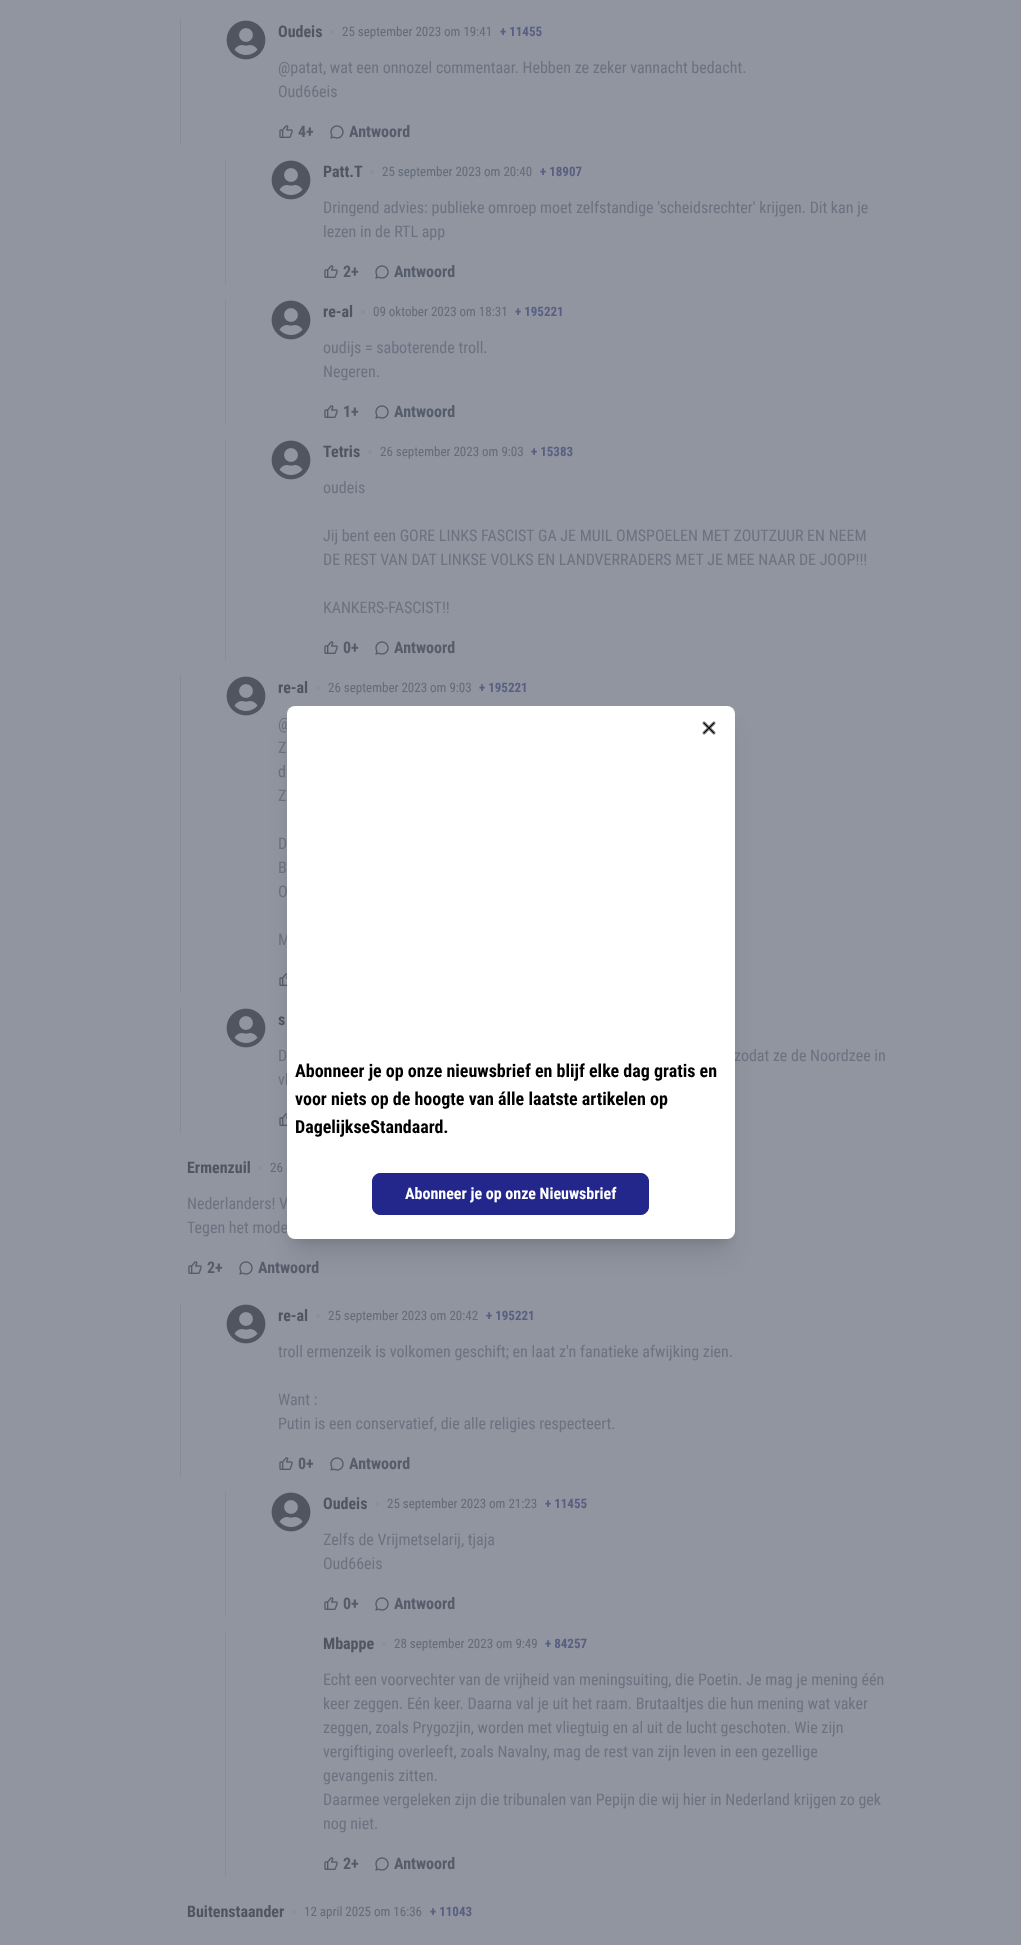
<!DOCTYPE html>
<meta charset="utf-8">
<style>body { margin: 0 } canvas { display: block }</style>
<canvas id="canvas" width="1021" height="1945"></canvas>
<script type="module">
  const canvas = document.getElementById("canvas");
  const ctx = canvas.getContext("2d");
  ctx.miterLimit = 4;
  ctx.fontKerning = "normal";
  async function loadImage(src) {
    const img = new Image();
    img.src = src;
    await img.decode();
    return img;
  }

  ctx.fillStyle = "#9095a0";
  ctx.fillRect(0, 0, 1021, 1945);
  ctx.fillStyle = "#858b97";
  ctx.fillRect(180, 20, 1, 124);
  ctx.drawImage(await loadImage("img1.png"), 226, 20, 40, 40);
  ctx.font = "bold 16px Roboto Condensed";
  ctx.fillStyle = "#505660";
  ctx.fillText("Oudeis", 278, 37);
  ctx.fillStyle = "#8a8f99";
  ctx.beginPath();
  ctx.arc(332, 32, 2, 0, Math.PI * 2);
  ctx.fill();
  ctx.font = "13px Roboto Condensed";
  ctx.fillStyle = "#636b79";
  ctx.fillText("25 september 2023 om 19:41", 342, 36);
  ctx.font = "bold 13px Roboto Condensed";
  ctx.fillStyle = "#595f83";
  ctx.fillText("+ 11455", 500, 36);
  ctx.font = "16px Roboto Condensed";
  ctx.fillStyle = "#6b7280";
  ctx.fillText("@patat, wat een onnozel commentaar. Hebben ze zeker vannacht bedacht.", 278, 73);
  ctx.fillText("Oud66eis", 278, 97);
  ctx.drawImage(await loadImage("img2.png"), 279, 125, 14, 13);
  ctx.font = "bold 16px Roboto Condensed";
  ctx.fillStyle = "#555c6a";
  ctx.fillText("4+", 298, 137);
  ctx.drawImage(await loadImage("img3.png"), 330, 125, 14, 14);
  ctx.fillText("Antwoord", 349, 137);
  ctx.fillStyle = "#858b97";
  ctx.fillRect(225, 160, 1, 124);
  ctx.drawImage(await loadImage("img1.png"), 271, 160, 40, 40);
  ctx.fillStyle = "#505660";
  ctx.fillText("Patt.T", 323, 177);
  ctx.fillStyle = "#8a8f99";
  ctx.beginPath();
  ctx.arc(372, 172, 2, 0, Math.PI * 2);
  ctx.fill();
  ctx.font = "13px Roboto Condensed";
  ctx.fillStyle = "#636b79";
  ctx.fillText("25 september 2023 om 20:40", 382, 176);
  ctx.font = "bold 13px Roboto Condensed";
  ctx.fillStyle = "#595f83";
  ctx.fillText("+ 18907", 540, 176);
  ctx.font = "16px Roboto Condensed";
  ctx.fillStyle = "#6b7280";
  ctx.fillText("Dringend advies: publieke omroep moet zelfstandige 'scheidsrechter' krijgen. Dit kan je", 323, 213);
  ctx.fillText("lezen in de RTL app", 323, 237);
  ctx.drawImage(await loadImage("img2.png"), 324, 265, 14, 13);
  ctx.font = "bold 16px Roboto Condensed";
  ctx.fillStyle = "#555c6a";
  ctx.fillText("2+", 343, 277);
  ctx.drawImage(await loadImage("img3.png"), 375, 265, 14, 14);
  ctx.fillText("Antwoord", 394, 277);
  ctx.fillStyle = "#858b97";
  ctx.fillRect(225, 300, 1, 124);
  ctx.drawImage(await loadImage("img1.png"), 271, 300, 40, 40);
  ctx.fillStyle = "#505660";
  ctx.fillText("re-al", 323, 317);
  ctx.fillStyle = "#8a8f99";
  ctx.beginPath();
  ctx.arc(363, 312, 2, 0, Math.PI * 2);
  ctx.fill();
  ctx.font = "13px Roboto Condensed";
  ctx.fillStyle = "#636b79";
  ctx.fillText("09 oktober 2023 om 18:31", 373, 316);
  ctx.font = "bold 13px Roboto Condensed";
  ctx.fillStyle = "#595f83";
  ctx.fillText("+ 195221", 515, 316);
  ctx.font = "16px Roboto Condensed";
  ctx.fillStyle = "#6b7280";
  ctx.fillText("oudijs = saboterende troll.", 323, 353);
  ctx.fillText("Negeren.", 323, 377);
  ctx.drawImage(await loadImage("img2.png"), 324, 405, 14, 13);
  ctx.font = "bold 16px Roboto Condensed";
  ctx.fillStyle = "#555c6a";
  ctx.fillText("1+", 343, 417);
  ctx.drawImage(await loadImage("img3.png"), 375, 405, 14, 14);
  ctx.fillText("Antwoord", 394, 417);
  ctx.fillStyle = "#858b97";
  ctx.fillRect(225, 440, 1, 220);
  ctx.drawImage(await loadImage("img1.png"), 271, 440, 40, 40);
  ctx.fillStyle = "#505660";
  ctx.fillText("Tetris", 323, 457);
  ctx.fillStyle = "#8a8f99";
  ctx.beginPath();
  ctx.arc(370, 452, 2, 0, Math.PI * 2);
  ctx.fill();
  ctx.font = "13px Roboto Condensed";
  ctx.fillStyle = "#636b79";
  ctx.fillText("26 september 2023 om 9:03", 380, 456);
  ctx.font = "bold 13px Roboto Condensed";
  ctx.fillStyle = "#595f83";
  ctx.fillText("+ 15383", 531, 456);
  ctx.font = "16px Roboto Condensed";
  ctx.fillStyle = "#6b7280";
  ctx.fillText("oudeis", 323, 493);
  ctx.fillText("Jij bent een GORE LINKS FASCIST GA JE MUIL OMSPOELEN MET ZOUTZUUR EN NEEM", 323, 541);
  ctx.fillText("DE REST VAN DAT LINKSE VOLKS EN LANDVERRADERS MET JE MEE NAAR DE JOOP!!!", 323, 565);
  ctx.fillText("KANKERS-FASCIST!!", 323, 613);
  ctx.drawImage(await loadImage("img2.png"), 324, 641, 14, 13);
  ctx.font = "bold 16px Roboto Condensed";
  ctx.fillStyle = "#555c6a";
  ctx.fillText("0+", 343, 653);
  ctx.drawImage(await loadImage("img3.png"), 375, 641, 14, 14);
  ctx.fillText("Antwoord", 394, 653);
  ctx.fillStyle = "#858b97";
  ctx.fillRect(180, 676, 1, 316);
  ctx.drawImage(await loadImage("img1.png"), 226, 676, 40, 40);
  ctx.fillStyle = "#505660";
  ctx.fillText("re-al", 278, 693);
  ctx.fillStyle = "#8a8f99";
  ctx.beginPath();
  ctx.arc(318, 688, 2, 0, Math.PI * 2);
  ctx.fill();
  ctx.font = "13px Roboto Condensed";
  ctx.fillStyle = "#636b79";
  ctx.fillText("26 september 2023 om 9:03", 328, 692);
  ctx.font = "bold 13px Roboto Condensed";
  ctx.fillStyle = "#595f83";
  ctx.fillText("+ 195221", 479, 692);
  ctx.font = "16px Roboto Condensed";
  ctx.fillStyle = "#6b7280";
  ctx.fillText("@", 278, 729);
  ctx.fillText("Z", 278, 753);
  ctx.fillText("d", 278, 777);
  ctx.fillText("Z", 278, 801);
  ctx.fillText("D", 278, 849);
  ctx.fillText("B", 278, 873);
  ctx.fillText("O", 278, 897);
  ctx.fillText("M", 278, 945);
  ctx.drawImage(await loadImage("img4.png"), 279, 973, 8, 13);
  ctx.fillStyle = "#858b97";
  ctx.fillRect(180, 1008, 1, 124);
  ctx.drawImage(await loadImage("img1.png"), 226, 1008, 40, 40);
  ctx.font = "bold 16px Roboto Condensed";
  ctx.fillStyle = "#505660";
  ctx.fillText("s", 278, 1025);
  ctx.font = "16px Roboto Condensed";
  ctx.fillStyle = "#6b7280";
  ctx.fillText("D", 278, 1061);
  ctx.fillText("zodat ze de Noordzee in", 734, 1061);
  ctx.fillText("vl", 278, 1085);
  ctx.drawImage(await loadImage("img4.png"), 279, 1113, 8, 13);
  ctx.font = "bold 16px Roboto Condensed";
  ctx.fillStyle = "#505660";
  ctx.fillText("Ermenzuil", 187, 1173);
  ctx.fillStyle = "#8a8f99";
  ctx.beginPath();
  ctx.arc(260, 1168, 2, 0, Math.PI * 2);
  ctx.fill();
  ctx.font = "13px Roboto Condensed";
  ctx.fillStyle = "#636b79";
  ctx.fillText("26", 270, 1172);
  ctx.font = "16px Roboto Condensed";
  ctx.fillStyle = "#6b7280";
  ctx.fillText("Nederlanders! V", 187, 1209);
  ctx.fillText("Tegen het mode", 187, 1233);
  ctx.drawImage(await loadImage("img2.png"), 188, 1261, 14, 13);
  ctx.font = "bold 16px Roboto Condensed";
  ctx.fillStyle = "#555c6a";
  ctx.fillText("2+", 207, 1273);
  ctx.drawImage(await loadImage("img3.png"), 239, 1261, 14, 14);
  ctx.fillText("Antwoord", 258, 1273);
  ctx.fillStyle = "#858b97";
  ctx.fillRect(180, 1304, 1, 172);
  ctx.drawImage(await loadImage("img1.png"), 226, 1304, 40, 40);
  ctx.fillStyle = "#505660";
  ctx.fillText("re-al", 278, 1321);
  ctx.fillStyle = "#8a8f99";
  ctx.beginPath();
  ctx.arc(318, 1316, 2, 0, Math.PI * 2);
  ctx.fill();
  ctx.font = "13px Roboto Condensed";
  ctx.fillStyle = "#636b79";
  ctx.fillText("25 september 2023 om 20:42", 328, 1320);
  ctx.font = "bold 13px Roboto Condensed";
  ctx.fillStyle = "#595f83";
  ctx.fillText("+ 195221", 486, 1320);
  ctx.font = "16px Roboto Condensed";
  ctx.fillStyle = "#6b7280";
  ctx.fillText("troll ermenzeik is volkomen geschift; en laat z'n fanatieke afwijking zien.", 278, 1357);
  ctx.fillText("Want :", 278, 1405);
  ctx.fillText("Putin is een conservatief, die alle religies respecteert.", 278, 1429);
  ctx.drawImage(await loadImage("img2.png"), 279, 1457, 14, 13);
  ctx.font = "bold 16px Roboto Condensed";
  ctx.fillStyle = "#555c6a";
  ctx.fillText("0+", 298, 1469);
  ctx.drawImage(await loadImage("img3.png"), 330, 1457, 14, 14);
  ctx.fillText("Antwoord", 349, 1469);
  ctx.fillStyle = "#858b97";
  ctx.fillRect(225, 1492, 1, 124);
  ctx.drawImage(await loadImage("img1.png"), 271, 1492, 40, 40);
  ctx.fillStyle = "#505660";
  ctx.fillText("Oudeis", 323, 1509);
  ctx.fillStyle = "#8a8f99";
  ctx.beginPath();
  ctx.arc(377, 1504, 2, 0, Math.PI * 2);
  ctx.fill();
  ctx.font = "13px Roboto Condensed";
  ctx.fillStyle = "#636b79";
  ctx.fillText("25 september 2023 om 21:23", 387, 1508);
  ctx.font = "bold 13px Roboto Condensed";
  ctx.fillStyle = "#595f83";
  ctx.fillText("+ 11455", 545, 1508);
  ctx.font = "16px Roboto Condensed";
  ctx.fillStyle = "#6b7280";
  ctx.fillText("Zelfs de Vrijmetselarij, tjaja", 323, 1545);
  ctx.fillText("Oud66eis", 323, 1569);
  ctx.drawImage(await loadImage("img2.png"), 324, 1597, 14, 13);
  ctx.font = "bold 16px Roboto Condensed";
  ctx.fillStyle = "#555c6a";
  ctx.fillText("0+", 343, 1609);
  ctx.drawImage(await loadImage("img3.png"), 375, 1597, 14, 14);
  ctx.fillText("Antwoord", 394, 1609);
  ctx.fillStyle = "#858b97";
  ctx.fillRect(225, 1632, 1, 244);
  ctx.fillStyle = "#505660";
  ctx.fillText("Mbappe", 323, 1649);
  ctx.fillStyle = "#8a8f99";
  ctx.beginPath();
  ctx.arc(384, 1644, 2, 0, Math.PI * 2);
  ctx.fill();
  ctx.font = "13px Roboto Condensed";
  ctx.fillStyle = "#636b79";
  ctx.fillText("28 september 2023 om 9:49", 394, 1648);
  ctx.font = "bold 13px Roboto Condensed";
  ctx.fillStyle = "#595f83";
  ctx.fillText("+ 84257", 545, 1648);
  ctx.font = "16px Roboto Condensed";
  ctx.fillStyle = "#6b7280";
  ctx.fillText("Echt een voorvechter van de vrijheid van meningsuiting, die Poetin. Je mag je mening één", 323, 1685);
  ctx.fillText("keer zeggen. Eén keer. Daarna val je uit het raam. Brutaaltjes die hun mening wat vaker", 323, 1709);
  ctx.fillText("zeggen, zoals Prygozjin, worden met vliegtuig en al uit de lucht geschoten. Wie zijn", 323, 1733);
  ctx.fillText("vergiftiging overleeft, zoals Navalny, mag de rest van zijn leven in een gezellige", 323, 1757);
  ctx.fillText("gevangenis zitten.", 323, 1781);
  ctx.fillText("Daarmee vergeleken zijn die tribunalen van Pepijn die wij hier in Nederland krijgen zo gek", 323, 1805);
  ctx.fillText("nog niet.", 323, 1829);
  ctx.drawImage(await loadImage("img2.png"), 324, 1857, 14, 13);
  ctx.font = "bold 16px Roboto Condensed";
  ctx.fillStyle = "#555c6a";
  ctx.fillText("2+", 343, 1869);
  ctx.drawImage(await loadImage("img3.png"), 375, 1857, 14, 14);
  ctx.fillText("Antwoord", 394, 1869);
  ctx.fillStyle = "#505660";
  ctx.fillText("Buitenstaander", 187, 1917);
  ctx.fillStyle = "#8a8f99";
  ctx.beginPath();
  ctx.arc(294, 1912, 2, 0, Math.PI * 2);
  ctx.fill();
  ctx.font = "13px Roboto Condensed";
  ctx.fillStyle = "#636b79";
  ctx.fillText("12 april 2025 om 16:36", 304, 1916);
  ctx.font = "bold 13px Roboto Condensed";
  ctx.fillStyle = "#595f83";
  ctx.fillText("+ 11043", 430, 1916);
  ctx.fillStyle = "rgba(0, 0, 0, 0.1)";
  ctx.filter = "blur(5px)";
  ctx.beginPath();
  ctx.roundRect(293, 720, 436, 521, 2);
  ctx.fill();
  ctx.filter = "none";
  ctx.filter = "blur(12.5px)";
  ctx.beginPath();
  ctx.roundRect(292, 731, 438, 523, 3);
  ctx.fill();
  ctx.filter = "none";
  ctx.fillStyle = "#ffffff";
  ctx.beginPath();
  ctx.roundRect(287, 706, 448, 533, 8);
  ctx.fill();
  ctx.drawImage(await loadImage("img5.png"), 702, 721, 14, 14);
  ctx.font = "bold 18px Roboto Condensed";
  ctx.fillStyle = "#000000";
  ctx.fillText("Abonneer je op onze nieuwsbrief en blijf elke dag gratis en", 295, 1077);
  ctx.fillText("voor niets op de hoogte van álle laatste artikelen op", 295, 1105);
  ctx.fillText("DagelijkseStandaard.", 295, 1133);
  ctx.fillStyle = "#23268b";
  ctx.beginPath();
  ctx.roundRect(372.5, 1173.5, 276, 41, 7.5);
  ctx.fill();
  ctx.strokeStyle = "#23268b";
  ctx.stroke();
  ctx.font = "bold 16px Roboto Condensed";
  ctx.fillStyle = "#ffffff";
  ctx.fillText("Abonneer je op onze Nieuwsbrief", 405, 1199);
</script>
